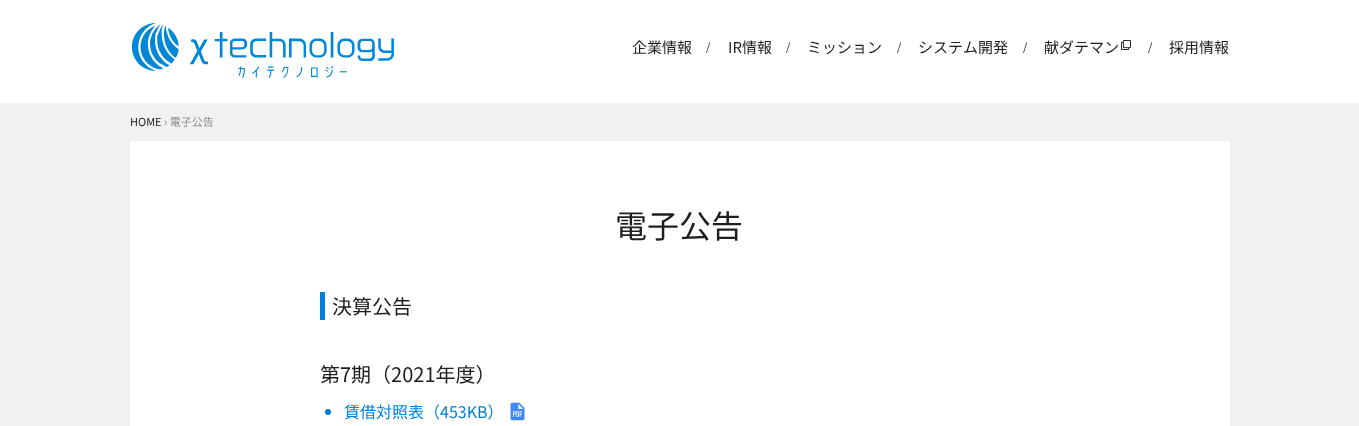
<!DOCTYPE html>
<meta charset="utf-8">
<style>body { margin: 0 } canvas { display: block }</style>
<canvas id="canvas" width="1359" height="426"></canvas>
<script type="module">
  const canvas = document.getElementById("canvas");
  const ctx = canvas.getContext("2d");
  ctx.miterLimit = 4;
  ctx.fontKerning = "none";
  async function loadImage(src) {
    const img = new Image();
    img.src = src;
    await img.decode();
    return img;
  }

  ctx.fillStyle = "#f1f1f0";
  ctx.fillRect(0, 0, 1359, 426);
  ctx.fillStyle = "#ffffff";
  ctx.fillRect(0, 0, 1359, 103);
  ctx.drawImage(await loadImage("img1.png"), 131, 23, 263, 55);
  ctx.font = "15px Noto Sans JP";
  ctx.fillStyle = "#1e1e1e";
  ctx.fillText("企業情報", 632, 53);
  ctx.font = "11px Noto Sans JP";
  ctx.fillText("/", 706, 51);
  ctx.font = "15px Noto Sans JP";
  ctx.fillText("IR情報", 728, 53);
  ctx.font = "11px Noto Sans JP";
  ctx.fillText("/", 786, 51);
  ctx.font = "15px Noto Sans JP";
  ctx.fillText("ミッション", 807, 53);
  ctx.font = "11px Noto Sans JP";
  ctx.fillText("/", 897, 51);
  ctx.font = "15px Noto Sans JP";
  ctx.fillText("システム開発", 918, 53);
  ctx.font = "11px Noto Sans JP";
  ctx.fillText("/", 1023, 51);
  ctx.font = "15px Noto Sans JP";
  ctx.fillText("献ダテマン", 1044, 53);
  ctx.drawImage(await loadImage("img2.png"), 1121, 40, 10, 10);
  ctx.font = "11px Noto Sans JP";
  ctx.fillText("/", 1148, 51);
  ctx.font = "15px Noto Sans JP";
  ctx.fillText("採用情報", 1169, 53);
  ctx.font = "11px Noto Sans JP";
  ctx.fillText("HOME", 130, 126);
  ctx.fillStyle = "#8e8e8e";
  ctx.fillText("› 電子公告", 164, 126);
  ctx.fillStyle = "#ffffff";
  ctx.fillRect(130, 141, 1100, 285);
  ctx.font = "32px Noto Sans JP";
  ctx.fillStyle = "#1e1e1e";
  ctx.fillText("電子公告", 615, 238);
  ctx.fillStyle = "#0080db";
  ctx.fillRect(320, 292, 5, 28);
  ctx.font = "20px Noto Sans JP";
  ctx.fillStyle = "#1e1e1e";
  ctx.fillText("決算公告", 332, 314);
  ctx.fillText("第7期（2021年度）", 320, 382);
  ctx.fillStyle = "#0080db";
  ctx.beginPath();
  ctx.arc(328, 412, 3, 0, Math.PI * 2);
  ctx.fill();
  ctx.font = "16px Noto Sans JP";
  ctx.fillText("賃借対照表（453KB）", 344, 418);
  ctx.drawImage(await loadImage("img3.png"), 510, 402, 15, 19);
</script>
